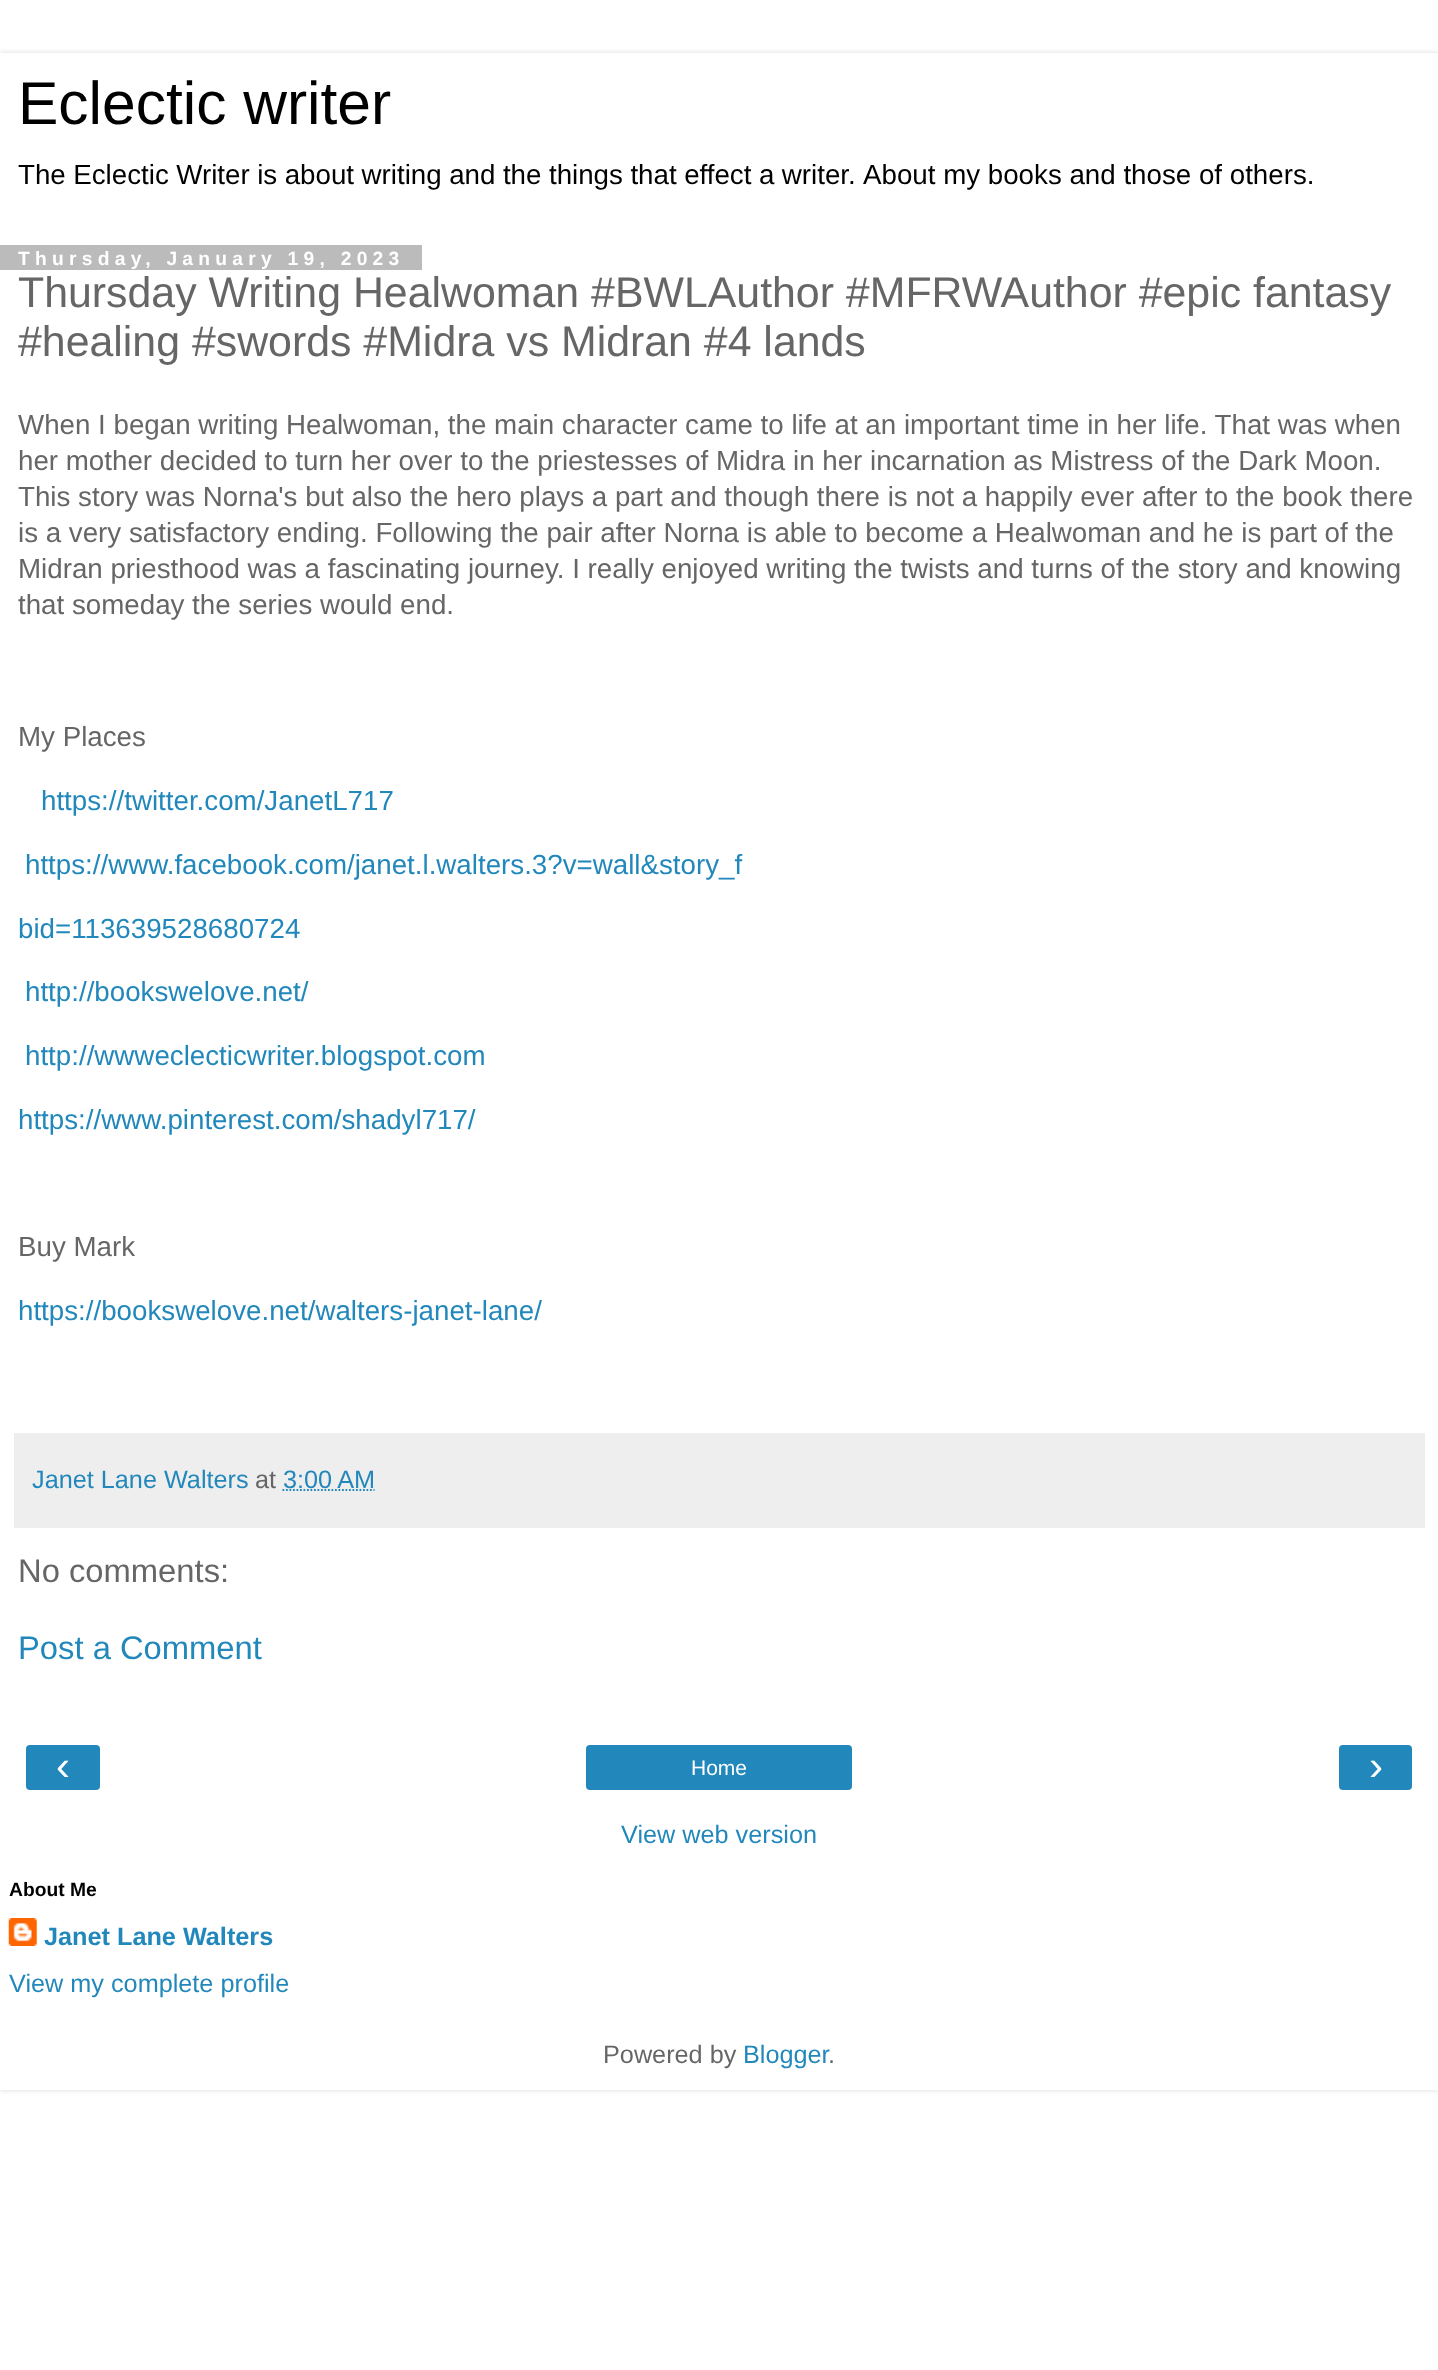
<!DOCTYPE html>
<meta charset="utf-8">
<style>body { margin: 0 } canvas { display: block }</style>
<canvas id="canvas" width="1438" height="2370"></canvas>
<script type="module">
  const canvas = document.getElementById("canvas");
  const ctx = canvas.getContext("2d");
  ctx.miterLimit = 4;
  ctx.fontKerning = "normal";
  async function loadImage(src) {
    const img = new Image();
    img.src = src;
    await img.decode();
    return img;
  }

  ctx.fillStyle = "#ffffff";
  ctx.fillRect(0, 0, 1438, 2370);
  ctx.fillStyle = "rgba(0, 0, 0, 0.15)";
  ctx.filter = "blur(2.5px)";
  ctx.beginPath();
  ctx.rect(0, 53, 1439, 2037);
  ctx.fill();
  ctx.filter = "none";
  ctx.fillStyle = "#ffffff";
  ctx.fillRect(0, 53, 1438, 2037);
  ctx.font = "60.5px Liberation Sans";
  ctx.fillStyle = "#000000";
  ctx.fillText("Eclectic writer", 18, 124);
  ctx.wordSpacing = "-0.2px";
  ctx.font = "27.72px Liberation Sans";
  ctx.fillText("The Eclectic Writer is about writing and the things that effect a writer.", 18, 184);
  ctx.wordSpacing = "0px";
  ctx.fillText("About my books and those of others.", 863, 184);
  ctx.fillStyle = "#bbbbbb";
  ctx.fillRect(0, 245, 422, 25);
  ctx.letterSpacing = "5.25px";
  ctx.font = "bold 19.25px Liberation Sans";
  ctx.fillStyle = "#ffffff";
  ctx.fillText("Thursday, January 19, 2023", 18, 265);
  ctx.letterSpacing = "0px";
  ctx.font = "42.85px Liberation Sans";
  ctx.fillStyle = "#666666";
  ctx.fillText("Thursday Writing Healwoman #BWLAuthor #MFRWAuthor #epic fantasy", 18, 307);
  ctx.fillText("#healing #swords #Midra vs Midran #4 lands", 18, 356);
  ctx.font = "27.72px Liberation Sans";
  ctx.fillText("When I began writing Healwoman, the main character came to life at an important time in her life. That was when", 18, 434);
  ctx.fillText("her mother decided to turn her over to the priestesses of Midra in her incarnation as Mistress of the Dark Moon.", 18, 470);
  ctx.fillText("This story was Norna's but also the hero plays a part and though there is not a happily ever after to the book there", 18, 506);
  ctx.fillText("is a very satisfactory ending. Following the pair after Norna is able to become a Healwoman and he is part of the", 18, 542);
  ctx.fillText("Midran priesthood was a fascinating journey. I really enjoyed writing the twists and turns of the story and knowing", 18, 578);
  ctx.fillText("that someday the series would end.", 18, 614);
  ctx.fillText("My Places", 18, 746);
  ctx.fillStyle = "#2288bb";
  ctx.fillText("https://twitter.com/JanetL717", 41, 810);
  ctx.fillText("https://www.facebook.com/janet.l.walters.3?v=wall&story_f", 25, 874);
  ctx.fillText("bid=113639528680724", 18, 938);
  ctx.fillText("http://bookswelove.net/", 25, 1001);
  ctx.fillText("http://wwweclecticwriter.blogspot.com", 25, 1065);
  ctx.fillText("https://www.pinterest.com/shadyl717/", 18, 1129);
  ctx.fillStyle = "#666666";
  ctx.fillText("Buy Mark", 18, 1256);
  ctx.fillStyle = "#2288bb";
  ctx.fillText("https://bookswelove.net/walters-janet-lane/", 18, 1320);
  ctx.fillStyle = "#eeeeee";
  ctx.fillRect(14, 1433, 1411, 95);
  ctx.font = "25.25px Liberation Sans";
  ctx.fillStyle = "#2288bb";
  ctx.fillText("Janet Lane Walters", 32, 1488);
  ctx.fillStyle = "#666666";
  ctx.fillText("at", 255, 1488);
  ctx.fillStyle = "#2288bb";
  ctx.fillText("3:00 AM", 283, 1488);
  ctx.beginPath();
  ctx.moveTo(282.5, 1490);
  ctx.lineTo(374.5, 1490);
  ctx.strokeStyle = "#2288bb";
  ctx.lineWidth = 1.8;
  ctx.setLineDash([1.75, 1.75]);
  ctx.stroke();
  ctx.font = "32.75px Liberation Sans";
  ctx.fillStyle = "#666666";
  ctx.fillText("No comments:", 18, 1582);
  ctx.fillStyle = "#2288bb";
  ctx.fillText("Post a Comment", 18, 1659);
  ctx.beginPath();
  ctx.roundRect(26, 1745, 74, 45, 4);
  ctx.fill();
  ctx.font = "42px Liberation Sans";
  ctx.fillStyle = "#ffffff";
  ctx.fillText("‹", 56, 1780);
  ctx.fillStyle = "#2288bb";
  ctx.beginPath();
  ctx.roundRect(586, 1745, 266, 45, 4);
  ctx.fill();
  ctx.font = "21px Liberation Sans";
  ctx.fillStyle = "#ffffff";
  ctx.fillText("Home", 691, 1775);
  ctx.fillStyle = "#2288bb";
  ctx.beginPath();
  ctx.roundRect(1339, 1745, 73, 45, 4);
  ctx.fill();
  ctx.font = "42px Liberation Sans";
  ctx.fillStyle = "#ffffff";
  ctx.fillText("›", 1369, 1780);
  ctx.font = "25.25px Liberation Sans";
  ctx.fillStyle = "#2288bb";
  ctx.fillText("View web version", 621, 1843);
  ctx.font = "bold 19.25px Liberation Sans";
  ctx.fillStyle = "#000000";
  ctx.fillText("About Me", 9, 1896);
  ctx.drawImage(await loadImage("img1.png"), 8, 1918, 29, 28);
  ctx.font = "bold 25.25px Liberation Sans";
  ctx.fillStyle = "#2288bb";
  ctx.fillText("Janet Lane Walters", 44, 1945);
  ctx.font = "25.25px Liberation Sans";
  ctx.fillText("View my complete profile", 9, 1992);
  ctx.fillStyle = "#666666";
  ctx.fillText("Powered by", 603, 2063);
  ctx.fillStyle = "#2288bb";
  ctx.fillText("Blogger", 743, 2063);
  ctx.fillStyle = "#666666";
  ctx.fillText(".", 828, 2063);
</script>
